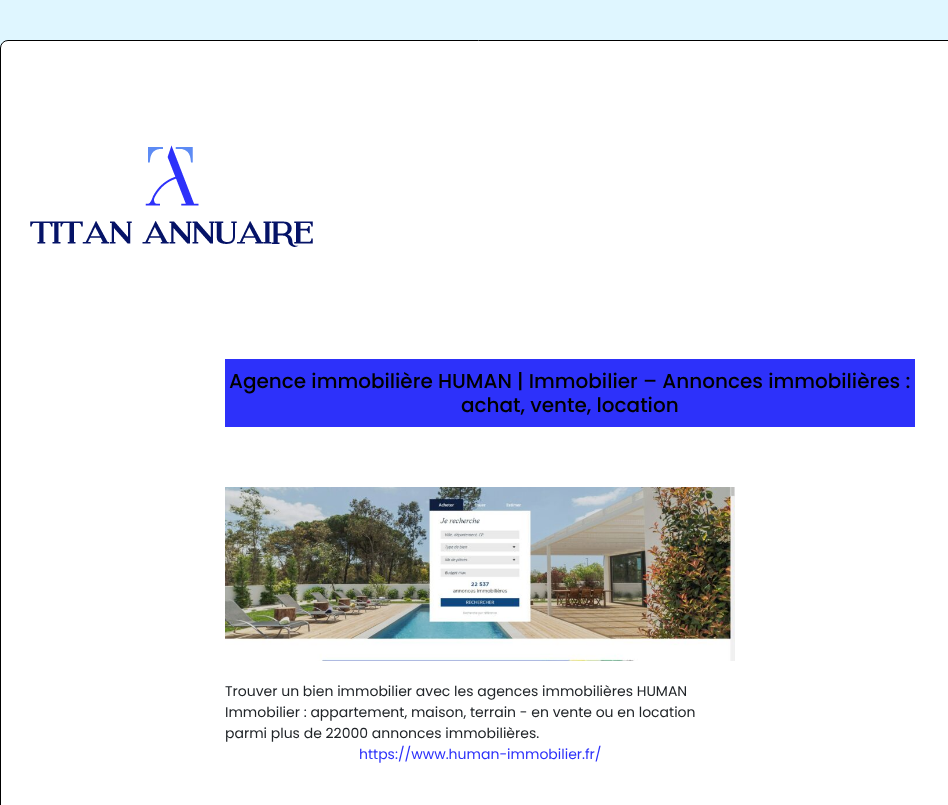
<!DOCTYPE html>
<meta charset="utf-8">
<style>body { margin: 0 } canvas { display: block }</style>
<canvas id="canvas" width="948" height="805"></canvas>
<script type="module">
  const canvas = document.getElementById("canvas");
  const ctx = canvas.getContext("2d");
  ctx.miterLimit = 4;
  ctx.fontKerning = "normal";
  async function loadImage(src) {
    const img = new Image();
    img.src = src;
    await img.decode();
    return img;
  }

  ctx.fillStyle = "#dff6ff";
  ctx.fillRect(0, 0, 948, 805);
  ctx.fillStyle = "#ffffff";
  ctx.beginPath();
  ctx.roundRect(0.5, 40.5, 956, 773, 7.5);
  ctx.fill();
  ctx.strokeStyle = "#000000";
  ctx.stroke();
  ctx.drawImage(await loadImage("img1.png"), 30, 145, 283, 102);
  ctx.fillStyle = "#2d31fa";
  ctx.fillRect(225, 359, 690, 68);
  ctx.font = "500 20px Poppins";
  ctx.fillStyle = "#000000";
  ctx.fillText("Agence immobilière HUMAN | Immobilier – Annonces immobilières :", 229, 388);
  ctx.fillText("achat, vente, location", 461, 412);
  ctx.drawImage(await loadImage("img2.png"), 225, 487, 510, 174);
  ctx.font = "14px Poppins";
  ctx.fillStyle = "#212529";
  ctx.fillText("Trouver un bien immobilier avec les agences immobilières HUMAN", 225, 696);
  ctx.fillText("Immobilier : appartement, maison, terrain - en vente ou en location", 225, 717);
  ctx.fillText("parmi plus de 22000 annonces immobilières.", 225, 738);
  ctx.fillStyle = "#2d31fa";
  ctx.fillText("https://www.human-immobilier.fr/", 359, 759);
</script>
